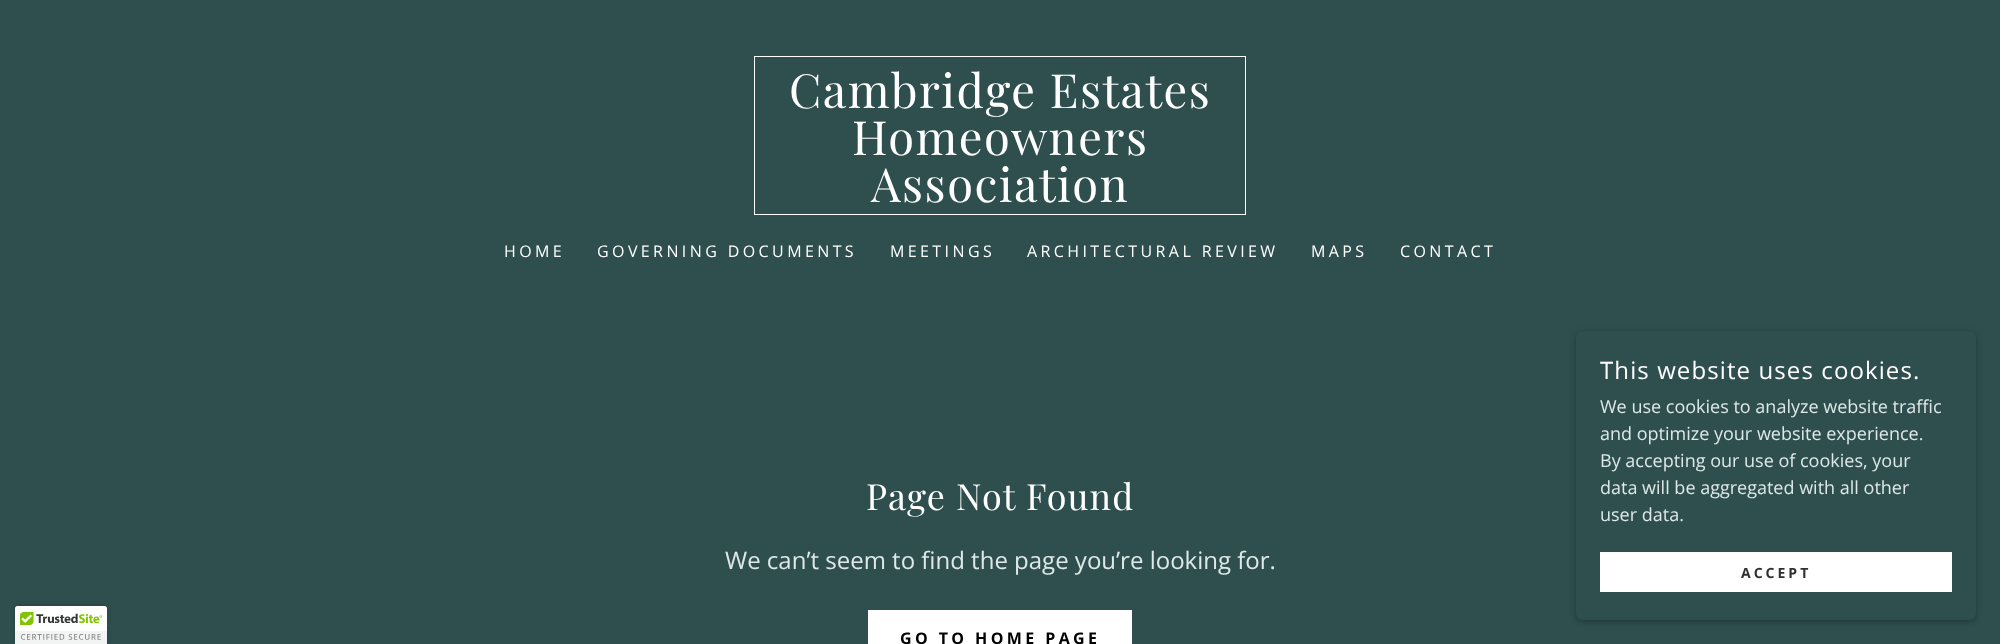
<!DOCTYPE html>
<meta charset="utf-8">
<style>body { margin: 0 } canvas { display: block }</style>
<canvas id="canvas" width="2000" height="644"></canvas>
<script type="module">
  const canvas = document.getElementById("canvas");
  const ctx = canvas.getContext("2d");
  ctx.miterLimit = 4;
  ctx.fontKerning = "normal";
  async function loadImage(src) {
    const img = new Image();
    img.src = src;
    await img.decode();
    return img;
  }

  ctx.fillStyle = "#2f4f4f";
  ctx.fillRect(0, 0, 2000, 644);
  ctx.fillStyle = "rgba(0, 0, 0, 0.2)";
  ctx.filter = "blur(2.5px)";
  ctx.beginPath();
  ctx.roundRect(15, 606, 92, 38, 2);
  ctx.fill();
  ctx.filter = "none";
  ctx.drawImage(await loadImage("img1.png"), 15, 606, 92, 38);
  ctx.strokeStyle = "#ffffff";
  ctx.strokeRect(754.5, 56.5, 491, 158);
  ctx.letterSpacing = "1.5px";
  ctx.font = "47px Playfair Display";
  ctx.fillStyle = "#ffffff";
  ctx.fillText("Cambridge Estates", 789, 108);
  ctx.fillText("Homeowners", 852, 155);
  ctx.fillText("Association", 871, 202);
  ctx.letterSpacing = "3.4px";
  ctx.font = "16px Open Sans";
  ctx.fillText("HOME", 504, 257);
  ctx.fillText("GOVERNING DOCUMENTS", 597, 257);
  ctx.fillText("MEETINGS", 890, 257);
  ctx.fillText("ARCHITECTURAL REVIEW", 1027, 257);
  ctx.fillText("MAPS", 1311, 257);
  ctx.fillText("CONTACT", 1400, 257);
  ctx.letterSpacing = "1.1px";
  ctx.font = "36px Playfair Display";
  ctx.fillText("Page Not Found", 866, 510);
  ctx.letterSpacing = "0px";
  ctx.font = "24px Open Sans";
  ctx.fillStyle = "#dee8e8";
  ctx.fillText("We can’t seem to find the page you’re looking for.", 725, 569);
  ctx.fillStyle = "#ffffff";
  ctx.fillRect(868, 610, 264, 34);
  ctx.letterSpacing = "3.4px";
  ctx.font = "bold 16px Open Sans";
  ctx.fillStyle = "#000000";
  ctx.fillText("GO TO HOME PAGE", 900, 644);
  ctx.fillStyle = "rgba(0, 0, 0, 0.3)";
  ctx.filter = "blur(3px)";
  ctx.beginPath();
  ctx.roundRect(1576, 333, 400, 289, 7);
  ctx.fill();
  ctx.filter = "none";
  ctx.fillStyle = "#2f4f4f";
  ctx.beginPath();
  ctx.roundRect(1576, 331, 400, 289, 7);
  ctx.fill();
  ctx.letterSpacing = "1.1px";
  ctx.font = "24px Open Sans";
  ctx.fillStyle = "#ffffff";
  ctx.fillText("This website uses cookies.", 1600, 379);
  ctx.letterSpacing = "0px";
  ctx.font = "18px Open Sans";
  ctx.fillStyle = "#dee8e8";
  ctx.fillText("We use cookies to analyze website traffic", 1600, 413);
  ctx.fillText("and optimize your website experience.", 1600, 440);
  ctx.fillText("By accepting our use of cookies, your", 1600, 467);
  ctx.fillText("data will be aggregated with all other", 1600, 494);
  ctx.fillText("user data.", 1600, 521);
  ctx.fillStyle = "#ffffff";
  ctx.fillRect(1600, 552, 352, 40);
  ctx.letterSpacing = "3px";
  ctx.font = "bold 14px Open Sans";
  ctx.fillStyle = "#303030";
  ctx.fillText("ACCEPT", 1741, 578);
</script>
